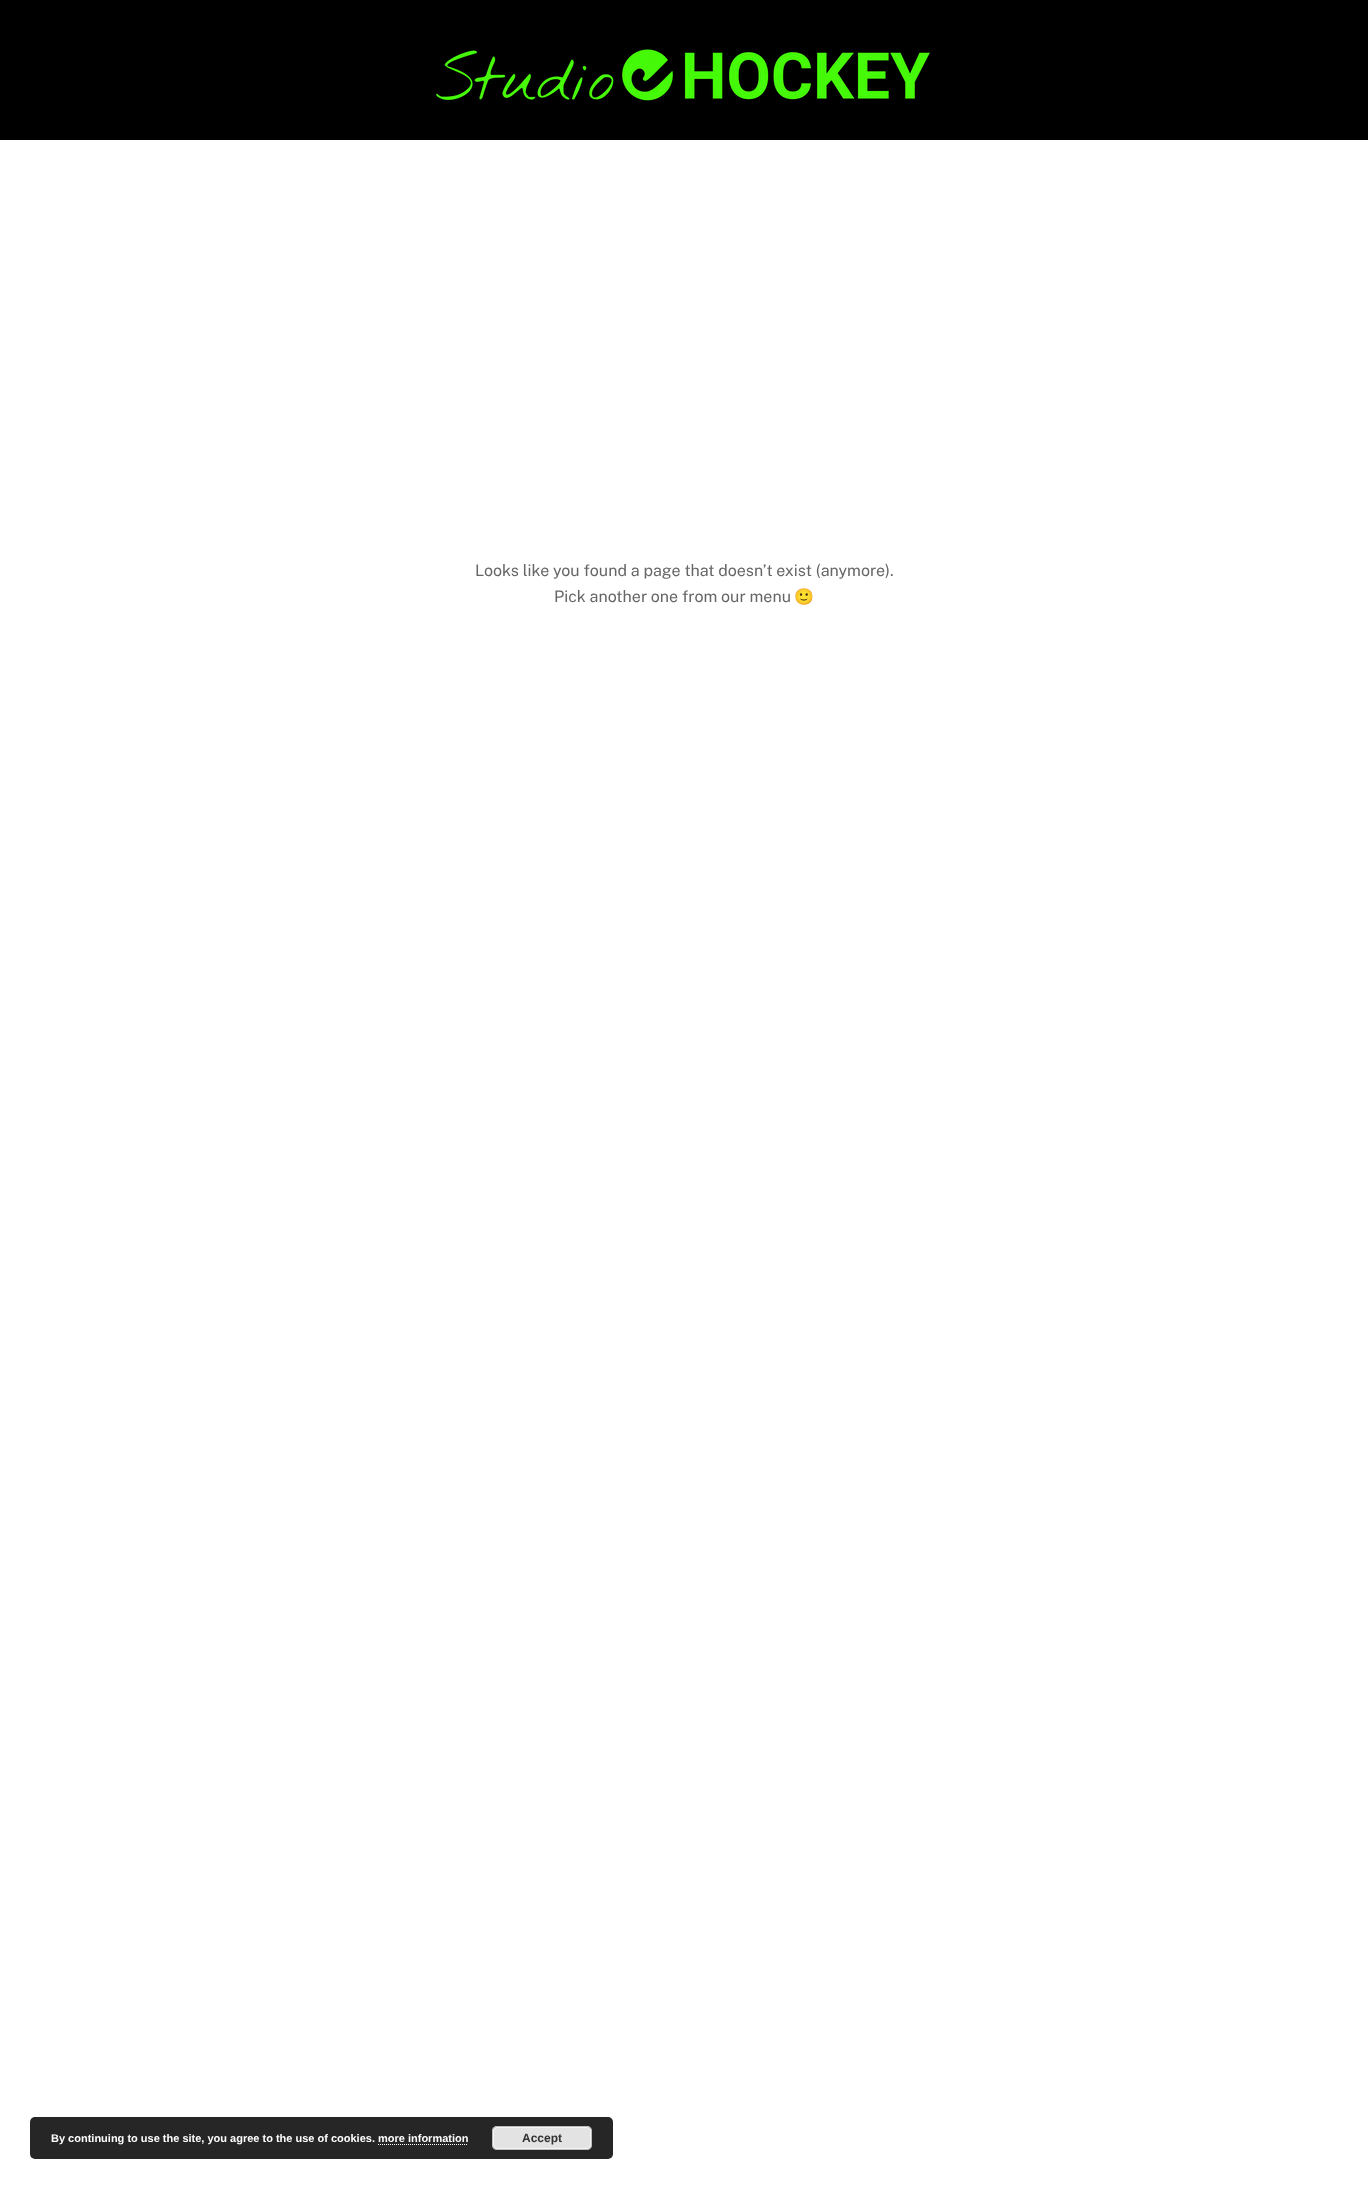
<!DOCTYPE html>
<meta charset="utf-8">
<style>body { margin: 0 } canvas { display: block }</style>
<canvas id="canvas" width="1368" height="2189"></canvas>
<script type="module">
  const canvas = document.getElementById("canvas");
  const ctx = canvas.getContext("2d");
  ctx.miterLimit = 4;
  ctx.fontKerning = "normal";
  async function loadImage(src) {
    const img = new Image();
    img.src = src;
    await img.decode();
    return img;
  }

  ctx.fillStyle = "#ffffff";
  ctx.fillRect(0, 0, 1368, 2189);
  ctx.fillStyle = "#000000";
  ctx.fillRect(0, 0, 1368, 140);
  ctx.drawImage(await loadImage("img1.png"), 436, 48, 494, 53);
  ctx.font = "16px Public Sans";
  ctx.fillStyle = "#666666";
  ctx.fillText("Looks like you found a page that doesn’t exist (anymore).", 475, 576);
  ctx.fillText("Pick another one from our menu", 554, 602);
  ctx.font = "16px Noto Color Emoji";
  ctx.fillText("🙂", 794, 602);
  ctx.fillStyle = "#262626";
  ctx.beginPath();
  ctx.roundRect(30, 2117, 583, 42, 5);
  ctx.fill();
  ctx.font = "bold 11px Liberation Sans";
  ctx.fillStyle = "#ffffff";
  ctx.fillText("By continuing to use the site, you agree to the use of cookies. more information", 51, 2142);
  ctx.fillStyle = "#e3e3e3";
  ctx.beginPath();
  ctx.roundRect(492, 2126, 100, 24, 5);
  ctx.fill();
  ctx.beginPath();
  ctx.roundRect(493.5, 2127.5, 97, 21, 3.5);
  ctx.strokeStyle = "#f6f6f6";
  ctx.stroke();
  ctx.beginPath();
  ctx.roundRect(492.5, 2126.5, 99, 23, 4.5);
  ctx.strokeStyle = "#bbbbbb";
  ctx.stroke();
  ctx.font = "bold 12px Liberation Sans";
  ctx.fillStyle = "#333333";
  ctx.fillText("Accept", 522, 2142);
  ctx.beginPath();
  ctx.moveTo(378, 2144.5);
  ctx.lineTo(468, 2144.5);
  ctx.strokeStyle = "#ffffff";
  ctx.setLineDash([1, 1]);
  ctx.stroke();
</script>
